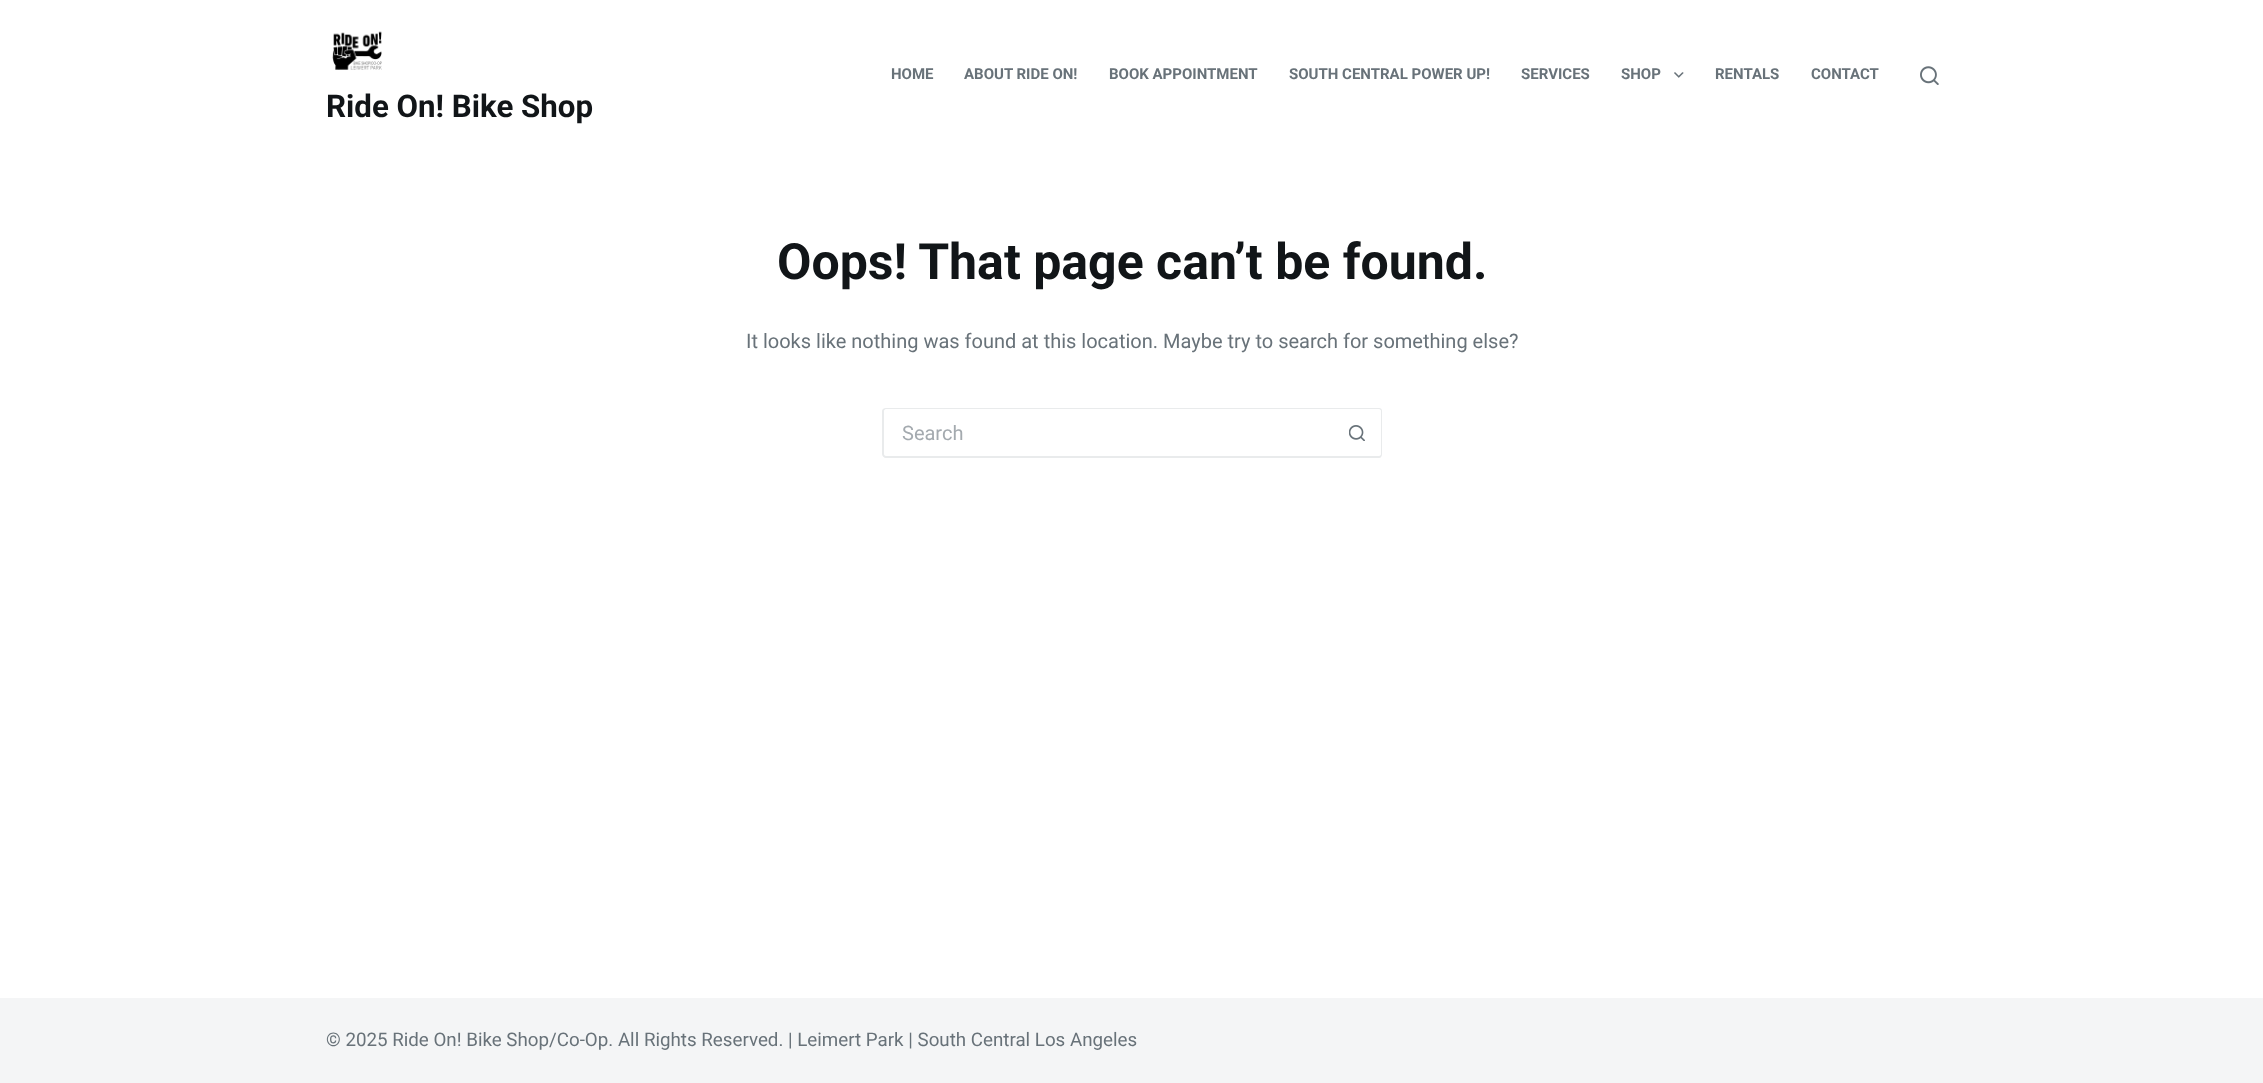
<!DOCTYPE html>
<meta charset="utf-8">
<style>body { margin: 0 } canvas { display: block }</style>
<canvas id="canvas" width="2263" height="1083"></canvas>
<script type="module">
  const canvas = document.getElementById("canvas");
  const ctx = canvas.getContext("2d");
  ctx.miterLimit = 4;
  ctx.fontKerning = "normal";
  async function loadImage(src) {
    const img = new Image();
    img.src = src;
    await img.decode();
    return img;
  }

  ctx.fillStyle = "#ffffff";
  ctx.fillRect(0, 0, 2263, 1083);
  ctx.font = "bold 15px Roboto";
  ctx.fillStyle = "#687279";
  ctx.fillText("HOME", 891, 79);
  ctx.fillText("ABOUT RIDE ON!", 964, 79);
  ctx.fillText("BOOK APPOINTMENT", 1109, 79);
  ctx.fillText("SOUTH CENTRAL POWER UP!", 1289, 79);
  ctx.fillText("SERVICES", 1521, 79);
  ctx.fillText("SHOP", 1621, 79);
  ctx.drawImage(await loadImage("img1.png"), 1674, 72, 10, 6);
  ctx.fillText("RENTALS", 1715, 79);
  ctx.fillText("CONTACT", 1811, 79);
  ctx.drawImage(await loadImage("img2.png"), 1920, 66, 19, 19);
  ctx.drawImage(await loadImage("img3.png"), 332, 31, 50, 39);
  ctx.font = "bold 31.25px Roboto";
  ctx.fillStyle = "#111518";
  ctx.fillText("Ride On! Bike Shop", 326, 117);
  ctx.font = "bold 50px Roboto";
  ctx.fillText("Oops! That page can’t be found.", 777, 279);
  ctx.font = "20px Roboto";
  ctx.fillStyle = "#687279";
  ctx.fillText("It looks like nothing was found at this location. Maybe try to search for something else?", 746, 348);
  ctx.fillStyle = "#e9ebec";
  ctx.beginPath();
  ctx.moveTo(886, 408);
  ctx.lineTo(1332, 408);
  ctx.lineTo(1332, 458);
  ctx.lineTo(886, 458);
  ctx.bezierCurveTo(884, 458, 882, 456, 882, 454);
  ctx.lineTo(882, 411);
  ctx.bezierCurveTo(882, 409, 884, 408, 886, 408);
  ctx.closePath();
  ctx.moveTo(886, 409);
  ctx.lineTo(1332, 409);
  ctx.lineTo(1332, 456);
  ctx.lineTo(886, 456);
  ctx.bezierCurveTo(885, 456, 884, 455, 884, 454);
  ctx.lineTo(884, 411);
  ctx.bezierCurveTo(884, 410, 885, 409, 886, 409);
  ctx.closePath();
  ctx.fill("evenodd");
  ctx.fillStyle = "#a4aaaf";
  ctx.fillText("Search", 902, 440);
  ctx.fillStyle = "#e9ebec";
  ctx.beginPath();
  ctx.moveTo(1332, 408);
  ctx.lineTo(1379, 408);
  ctx.bezierCurveTo(1381, 408, 1382, 409, 1382, 411);
  ctx.lineTo(1382, 454);
  ctx.bezierCurveTo(1382, 456, 1381, 458, 1379, 458);
  ctx.lineTo(1332, 458);
  ctx.closePath();
  ctx.moveTo(1332, 409);
  ctx.lineTo(1379, 409);
  ctx.bezierCurveTo(1380, 409, 1381, 410, 1381, 411);
  ctx.lineTo(1381, 454);
  ctx.bezierCurveTo(1381, 455, 1380, 456, 1379, 456);
  ctx.lineTo(1332, 456);
  ctx.closePath();
  ctx.fill("evenodd");
  ctx.drawImage(await loadImage("img4.png"), 1349, 425, 16, 16);
  ctx.fillStyle = "#f4f5f6";
  ctx.fillRect(0, 998, 2263, 85);
  ctx.font = "18.75px Roboto";
  ctx.fillStyle = "#687279";
  ctx.fillText("© 2025 Ride On! Bike Shop/Co-Op. All Rights Reserved. | Leimert Park | South Central Los Angeles", 326, 1046);
</script>
